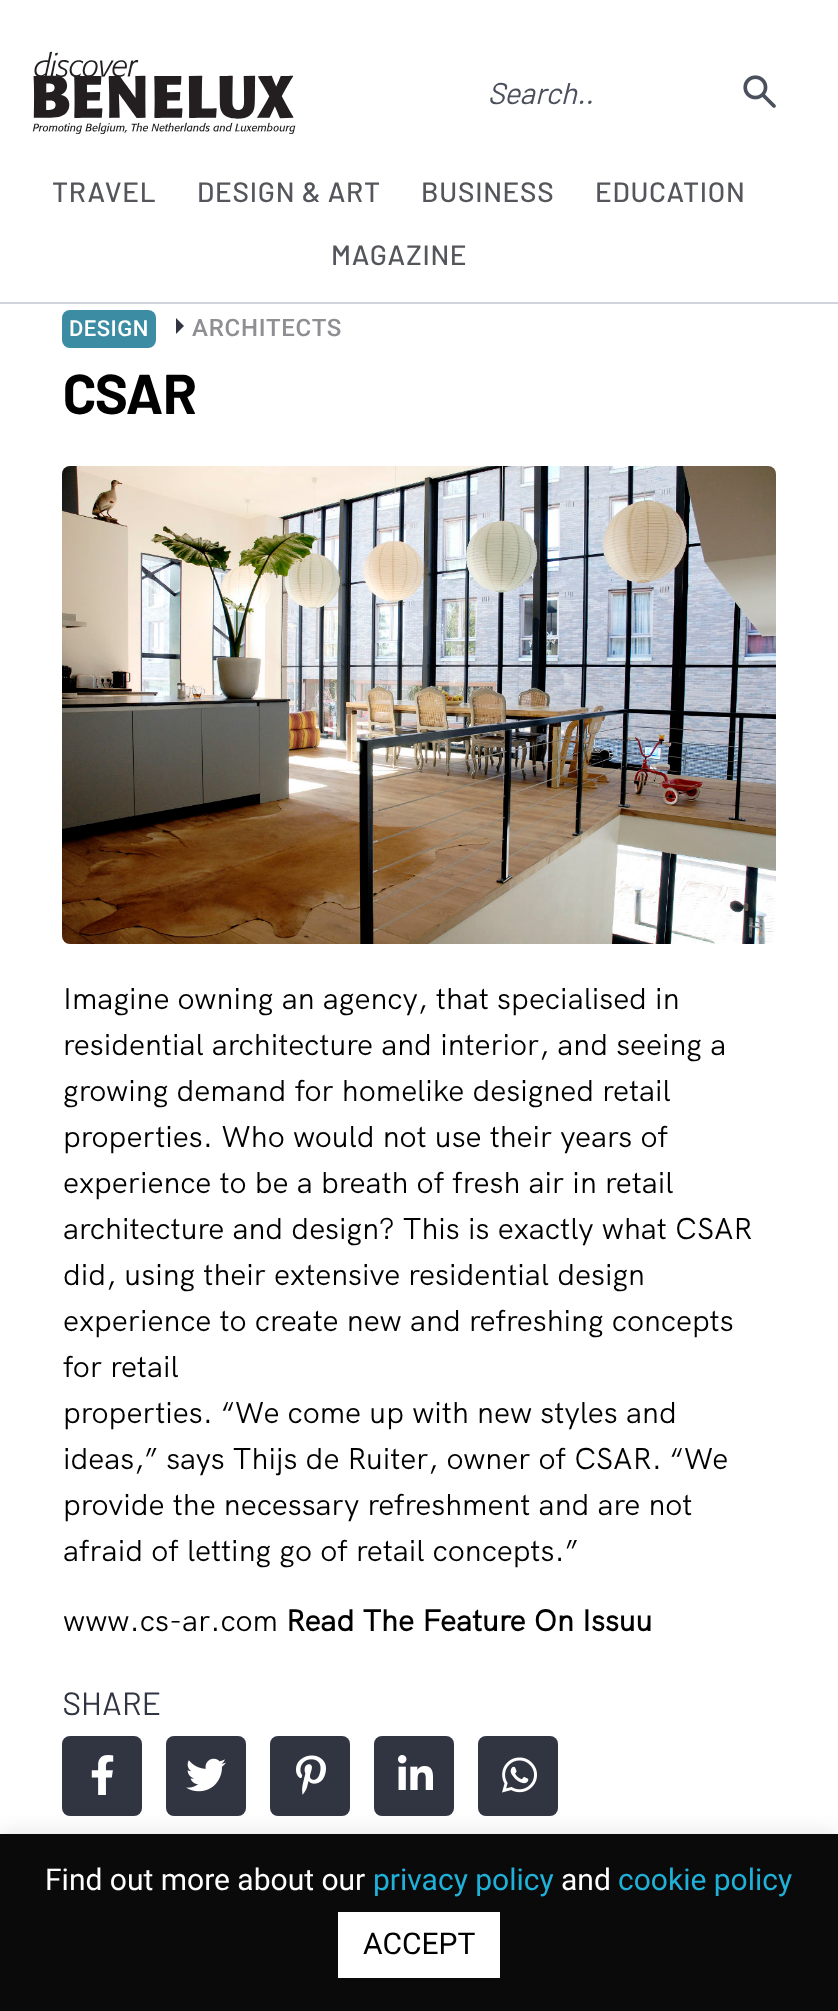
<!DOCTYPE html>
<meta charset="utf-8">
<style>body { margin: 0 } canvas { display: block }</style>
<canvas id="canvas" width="838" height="2011"></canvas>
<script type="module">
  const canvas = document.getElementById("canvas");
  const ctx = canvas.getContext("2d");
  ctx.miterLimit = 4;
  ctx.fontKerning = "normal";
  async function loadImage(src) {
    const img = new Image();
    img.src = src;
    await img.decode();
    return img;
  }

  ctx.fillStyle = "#ffffff";
  ctx.fillRect(0, 0, 838, 2011);
  ctx.fillStyle = "#d1d3de";
  ctx.fillRect(0, 302, 838, 2);
  ctx.drawImage(await loadImage("img1.png"), 32, 51, 264, 83);
  ctx.font = "italic 30px Barlow";
  ctx.fillStyle = "#4a505c";
  ctx.fillText("Search..", 488, 104);
  ctx.drawImage(await loadImage("img2.png"), 743, 75, 33, 33);
  ctx.letterSpacing = "0.75px";
  ctx.font = "500 28px Barlow";
  ctx.fillStyle = "#54565b";
  ctx.fillText("TRAVEL", 52, 202);
  ctx.fillText("DESIGN & ART", 197, 202);
  ctx.fillText("BUSINESS", 421, 202);
  ctx.fillText("EDUCATION", 595, 202);
  ctx.fillText("MAGAZINE", 331, 265);
  ctx.fillStyle = "#3c8da4";
  ctx.beginPath();
  ctx.roundRect(62, 310, 94, 38, 8);
  ctx.fill();
  ctx.letterSpacing = "0.5px";
  ctx.font = "500 22px Roboto";
  ctx.fillStyle = "#ffffff";
  ctx.fillText("DESIGN", 69, 336);
  ctx.fillStyle = "#313542";
  ctx.beginPath();
  ctx.moveTo(176, 334);
  ctx.lineTo(176, 318);
  ctx.lineTo(184, 326);
  ctx.closePath();
  ctx.fill();
  ctx.letterSpacing = "0.75px";
  ctx.font = "500 24px Roboto";
  ctx.fillStyle = "#8e8e93";
  ctx.fillText("ARCHITECTS", 192, 336);
  ctx.letterSpacing = "0px";
  ctx.font = "bold 56px Barlow";
  ctx.fillStyle = "#000000";
  ctx.fillText("CSAR", 63, 414);
  ctx.drawImage(await loadImage("img3.png"), 62, 466, 714, 478);
  ctx.font = "30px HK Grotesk";
  ctx.fillText("Imagine owning an agency, that specialised in", 63, 1009);
  ctx.fillText("residential architecture and interior, and seeing a", 63, 1055);
  ctx.fillText("growing demand for homelike designed retail", 63, 1101);
  ctx.fillText("properties. Who would not use their years of", 63, 1147);
  ctx.fillText("experience to be a breath of fresh air in retail", 63, 1193);
  ctx.fillText("architecture and design? This is exactly what CSAR", 63, 1239);
  ctx.fillText("did, using their extensive residential design", 63, 1285);
  ctx.fillText("experience to create new and refreshing concepts", 63, 1331);
  ctx.fillText("for retail", 63, 1377);
  ctx.fillText("properties. “We come up with new styles and", 63, 1423);
  ctx.fillText("ideas,” says Thijs de Ruiter, owner of CSAR. “We", 63, 1469);
  ctx.fillText("provide the necessary refreshment and are not", 63, 1515);
  ctx.fillText("afraid of letting go of retail concepts.”", 63, 1561);
  ctx.fillText("www.cs-ar.com", 63, 1631);
  ctx.font = "bold 30px HK Grotesk";
  ctx.fillText("Read The Feature On Issuu", 286, 1631);
  ctx.letterSpacing = "0.75px";
  ctx.font = "32px Barlow";
  ctx.fillStyle = "#313542";
  ctx.fillText("SHARE", 63, 1715);
  ctx.beginPath();
  ctx.roundRect(62, 1736, 80, 80, 8);
  ctx.fill();
  ctx.drawImage(await loadImage("img4.png"), 91, 1755, 23, 40);
  ctx.beginPath();
  ctx.roundRect(166, 1736, 80, 80, 8);
  ctx.fill();
  ctx.drawImage(await loadImage("img5.png"), 186, 1758, 40, 34);
  ctx.beginPath();
  ctx.roundRect(270, 1736, 80, 80, 8);
  ctx.fill();
  ctx.drawImage(await loadImage("img6.png"), 296, 1755, 30, 40);
  ctx.beginPath();
  ctx.roundRect(374, 1736, 80, 80, 8);
  ctx.fill();
  ctx.drawImage(await loadImage("img7.png"), 398, 1755, 35, 35);
  ctx.beginPath();
  ctx.roundRect(478, 1736, 80, 80, 8);
  ctx.fill();
  ctx.drawImage(await loadImage("img8.png"), 502, 1757, 35, 36);
  ctx.fillStyle = "rgba(172, 171, 171, 0.3)";
  ctx.filter = "blur(10px)";
  ctx.beginPath();
  ctx.rect(0, 1832, 838, 178);
  ctx.fill();
  ctx.filter = "none";
  ctx.fillStyle = "#0a0a0a";
  ctx.fillRect(0, 1834, 838, 177);
  ctx.letterSpacing = "0px";
  ctx.font = "30px Roboto";
  ctx.fillStyle = "#ffffff";
  ctx.fillText("Find out more about our", 45, 1890);
  ctx.fillStyle = "#20b1d9";
  ctx.fillText("privacy policy", 373, 1890);
  ctx.fillStyle = "#ffffff";
  ctx.fillText("and", 561, 1890);
  ctx.fillStyle = "#20b1d9";
  ctx.fillText("cookie policy", 618, 1890);
  ctx.fillStyle = "#ffffff";
  ctx.fillRect(338, 1912, 162, 66);
  ctx.fillStyle = "#000000";
  ctx.fillText("ACCEPT", 363, 1954);
</script>
